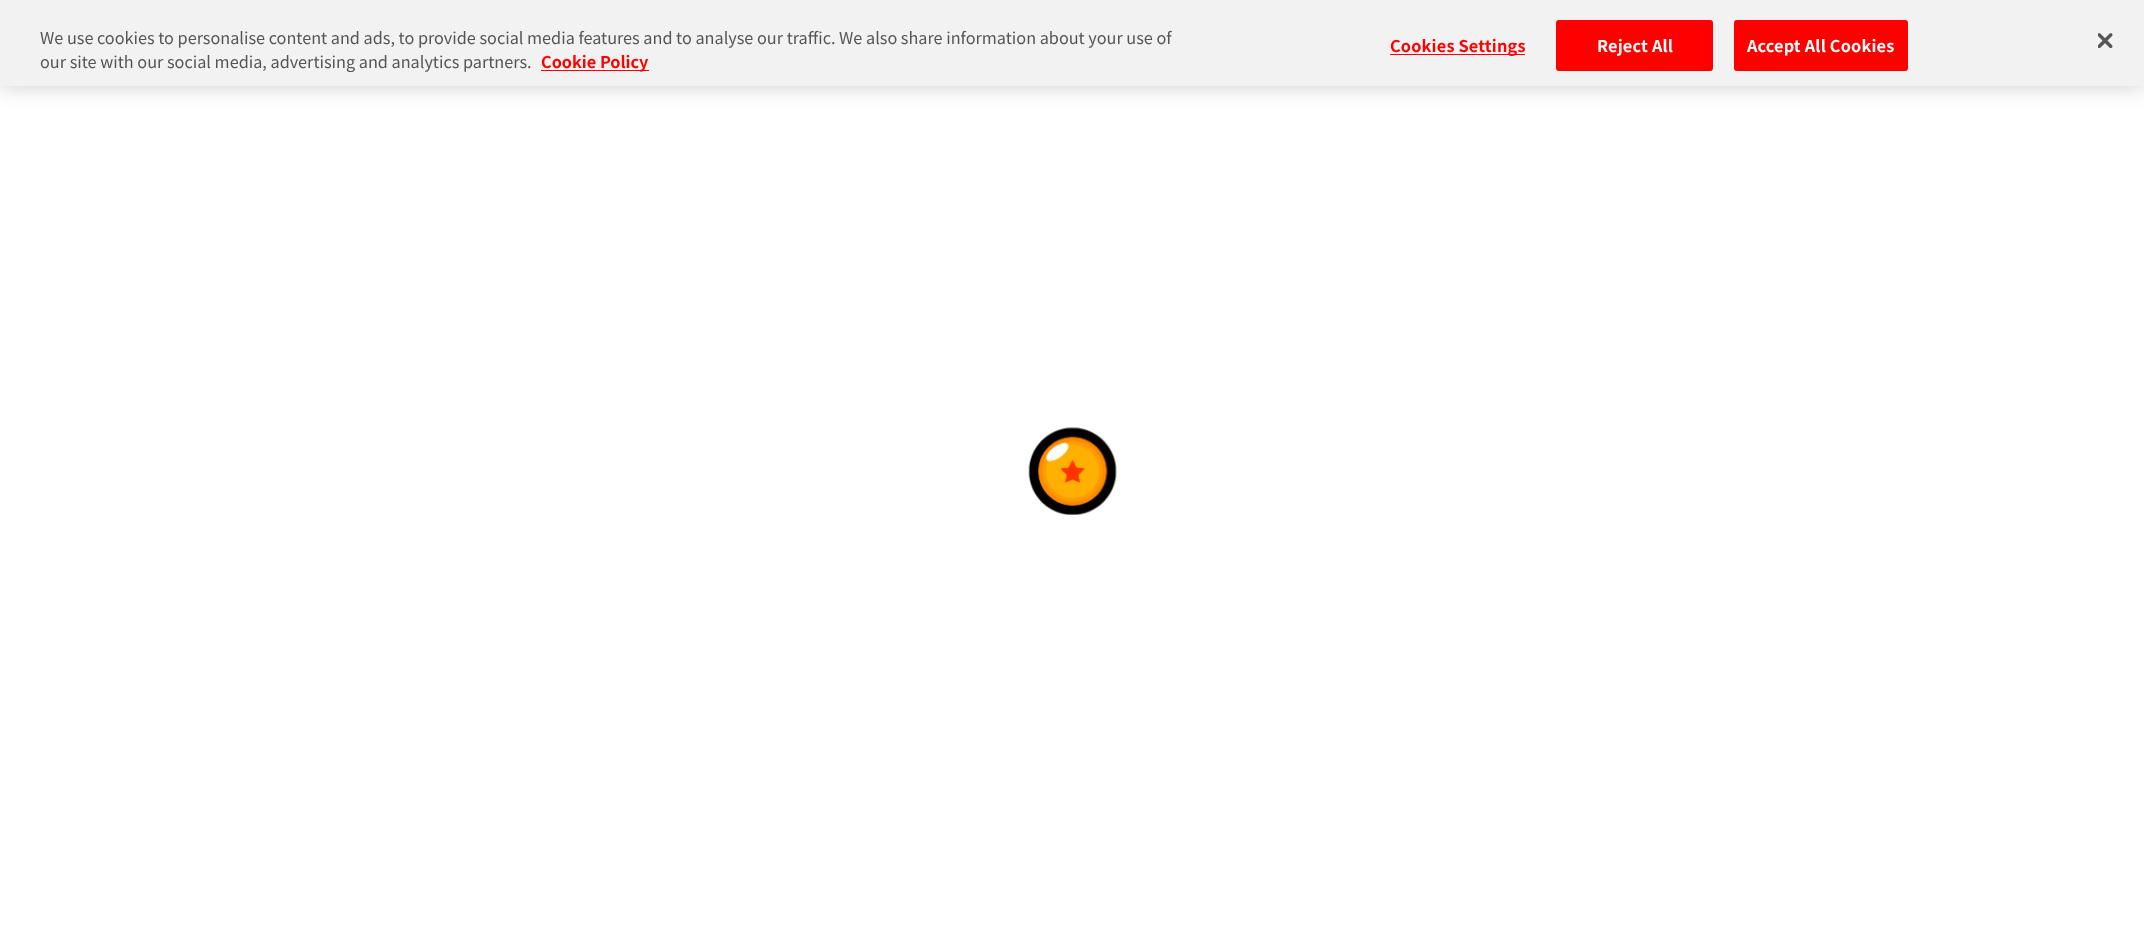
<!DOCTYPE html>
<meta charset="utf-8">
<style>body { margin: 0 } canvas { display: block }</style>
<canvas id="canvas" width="2144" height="941"></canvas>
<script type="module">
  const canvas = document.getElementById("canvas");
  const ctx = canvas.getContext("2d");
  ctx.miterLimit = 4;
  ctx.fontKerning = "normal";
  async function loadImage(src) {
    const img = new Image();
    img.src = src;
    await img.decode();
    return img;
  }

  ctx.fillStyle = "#ffffff";
  ctx.fillRect(0, 0, 2144, 941);
  ctx.fillStyle = "rgba(0, 0, 0, 0.2)";
  ctx.filter = "blur(11px)";
  ctx.beginPath();
  ctx.rect(0, 0, 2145, 86);
  ctx.fill();
  ctx.filter = "none";
  ctx.fillStyle = "#f2f2f2";
  ctx.fillRect(0, 0, 2144, 86);
  ctx.font = "16.25px Noto Sans JP";
  ctx.fillStyle = "#555555";
  ctx.fillText("We use cookies to personalise content and ads, to provide social media features and to analyse our traffic. We also share information about your use of", 40, 44);
  ctx.fillText("our site with our social media, advertising and analytics partners.", 40, 68);
  ctx.fillStyle = "#ff0000";
  ctx.fillRect(541, 70, 108, 1);
  ctx.font = "bold 16.25px Noto Sans JP";
  ctx.fillText("Cookie Policy", 541, 68);
  ctx.fillRect(1390, 54, 135, 1);
  ctx.letterSpacing = "0.2px";
  ctx.fillText("Cookies Settings", 1390, 52);
  ctx.beginPath();
  ctx.roundRect(1556.5, 20.5, 156, 50, 2);
  ctx.fill();
  ctx.strokeStyle = "#ff0000";
  ctx.stroke();
  ctx.fillStyle = "#ffffff";
  ctx.fillText("Reject All", 1597, 52);
  ctx.fillStyle = "#ff0000";
  ctx.beginPath();
  ctx.roundRect(1734.5, 20.5, 173, 50, 2);
  ctx.fill();
  ctx.stroke();
  ctx.fillStyle = "#ffffff";
  ctx.fillText("Accept All Cookies", 1747, 52);
  ctx.drawImage(await loadImage("img1.png"), 2098, 33, 15, 15);
  ctx.drawImage(await loadImage("img2.png"), 1028, 427, 89, 88);
</script>
